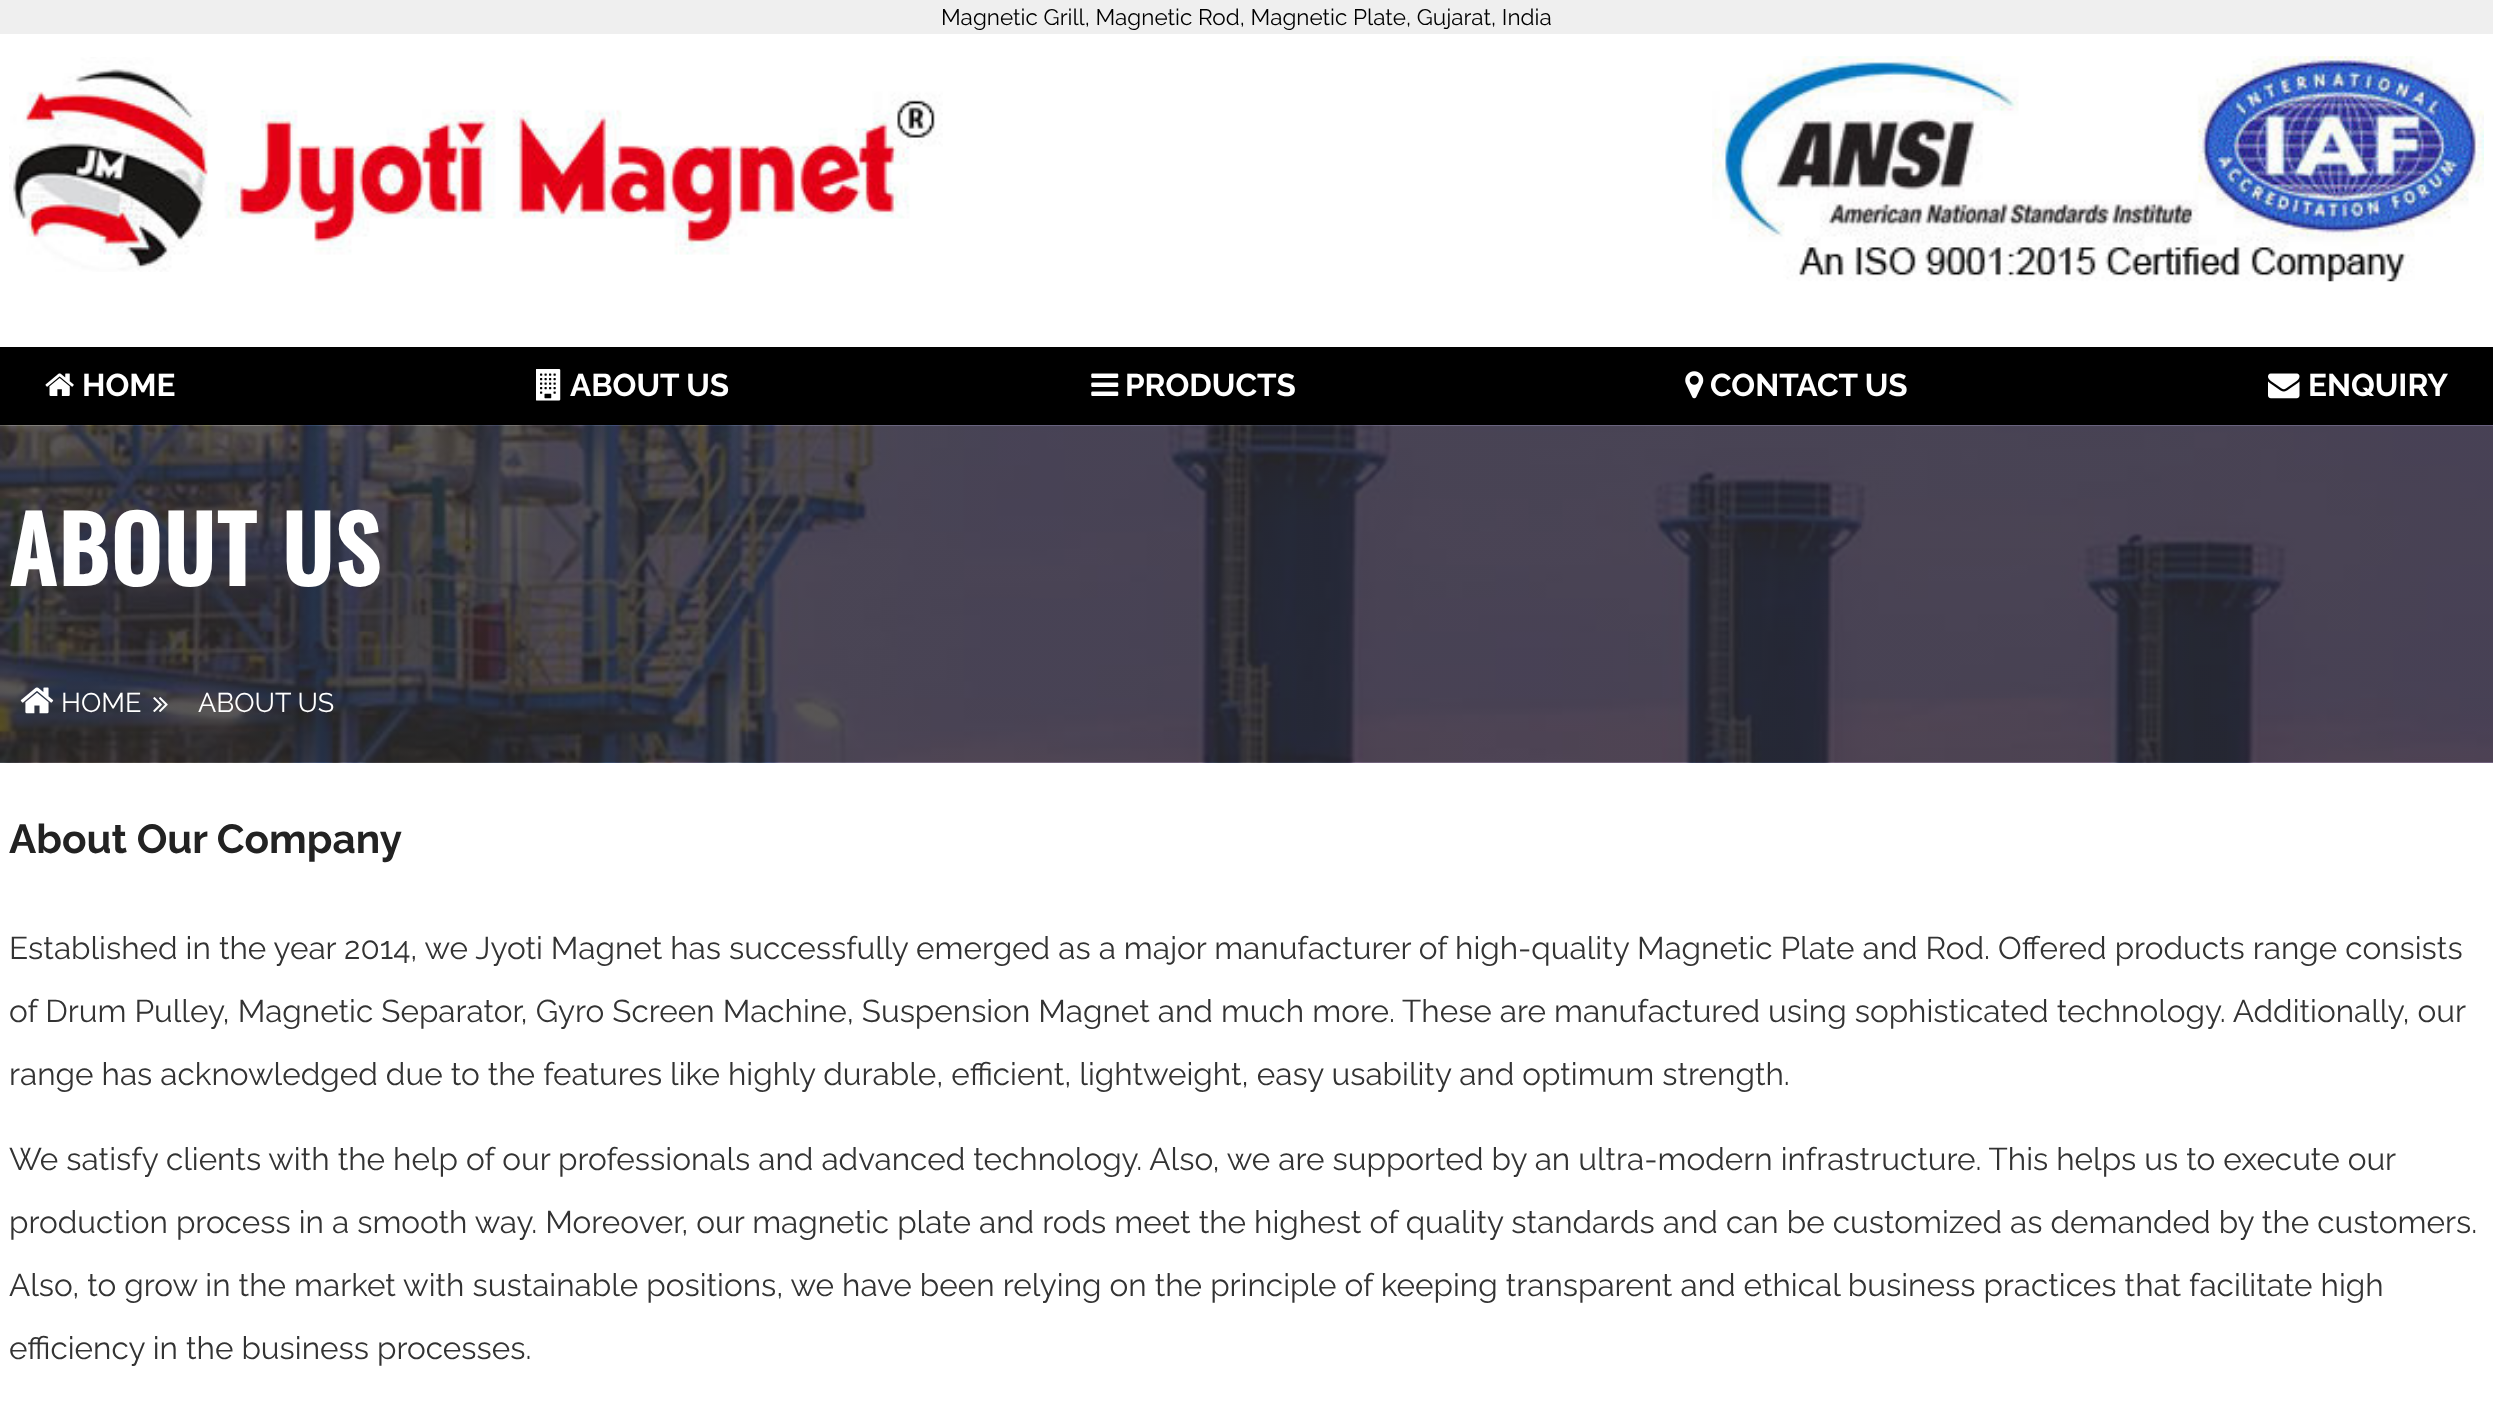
<!DOCTYPE html>
<meta charset="utf-8">
<style>body { margin: 0 } canvas { display: block }</style>
<canvas id="canvas" width="2493" height="1421"></canvas>
<script type="module">
  const canvas = document.getElementById("canvas");
  const ctx = canvas.getContext("2d");
  ctx.miterLimit = 4;
  ctx.fontKerning = "normal";
  async function loadImage(src) {
    const img = new Image();
    img.src = src;
    await img.decode();
    return img;
  }

  ctx.fillStyle = "#ffffff";
  ctx.fillRect(0, 0, 2493, 1421);
  ctx.fillStyle = "#efefef";
  ctx.fillRect(0, 0, 2493, 34);
  ctx.font = "22.5px Raleway";
  ctx.fillStyle = "#000000";
  ctx.fillText("Magnetic Grill, Magnetic Rod, Magnetic Plate, Gujarat, India", 941, 25);
  ctx.drawImage(await loadImage("img1.png"), 9, 57, 934, 215);
  ctx.drawImage(await loadImage("img2.png"), 1712, 56, 772, 226);
  ctx.fillRect(0, 347, 2493, 78);
  ctx.drawImage(await loadImage("img3.png"), 45, 373, 29, 23);
  ctx.font = "bold 31.5px Raleway";
  ctx.fillStyle = "#ffffff";
  ctx.fillText("HOME", 82, 396);
  ctx.drawImage(await loadImage("img4.png"), 536, 369, 25, 32);
  ctx.fillText("ABOUT US", 570, 396);
  ctx.drawImage(await loadImage("img5.png"), 1091, 373, 28, 23);
  ctx.fillText("PRODUCTS", 1125, 396);
  ctx.drawImage(await loadImage("img6.png"), 1685, 371, 19, 28);
  ctx.fillText("CONTACT US", 1710, 396);
  ctx.drawImage(await loadImage("img7.png"), 2268, 373, 32, 26);
  ctx.fillText("ENQUIRY", 2308, 396);
  ctx.drawImage(await loadImage("img8.png"), 0, 425, 2493, 338);
  ctx.letterSpacing = "2.25px";
  ctx.font = "bold 90px Oswald";
  ctx.fillText("ABOUT US", 9, 586);
  ctx.drawImage(await loadImage("img9.png"), 20, 687, 34, 27);
  ctx.letterSpacing = "0px";
  ctx.font = "27px Raleway";
  ctx.fillText("HOME", 61, 712);
  ctx.drawImage(await loadImage("img10.png"), 153, 697, 15, 15);
  ctx.fillText("ABOUT US", 198, 712);
  ctx.font = "bold 40.5px Raleway";
  ctx.fillStyle = "#222222";
  ctx.fillText("About Our Company", 9, 853);
  ctx.font = "31.5px Raleway";
  ctx.fillStyle = "#333333";
  ctx.fillText("Established in the year 2014, we Jyoti Magnet has successfully emerged as a major manufacturer of high-quality Magnetic Plate and Rod. Offered products range consists", 9, 959);
  ctx.fillText("of Drum Pulley, Magnetic Separator, Gyro Screen Machine, Suspension Magnet and much more. These are manufactured using sophisticated technology. Additionally, our", 9, 1022);
  ctx.fillText("range has acknowledged due to the features like highly durable, efficient, lightweight, easy usability and optimum strength.", 9, 1085);
  ctx.fillText("We satisfy clients with the help of our professionals and advanced technology. Also, we are supported by an ultra-modern infrastructure. This helps us to execute our", 9, 1170);
  ctx.fillText("production process in a smooth way. Moreover, our magnetic plate and rods meet the highest of quality standards and can be customized as demanded by the customers.", 9, 1233);
  ctx.fillText("Also, to grow in the market with sustainable positions, we have been relying on the principle of keeping transparent and ethical business practices that facilitate high", 9, 1296);
  ctx.fillText("efficiency in the business processes.", 9, 1359);
</script>
